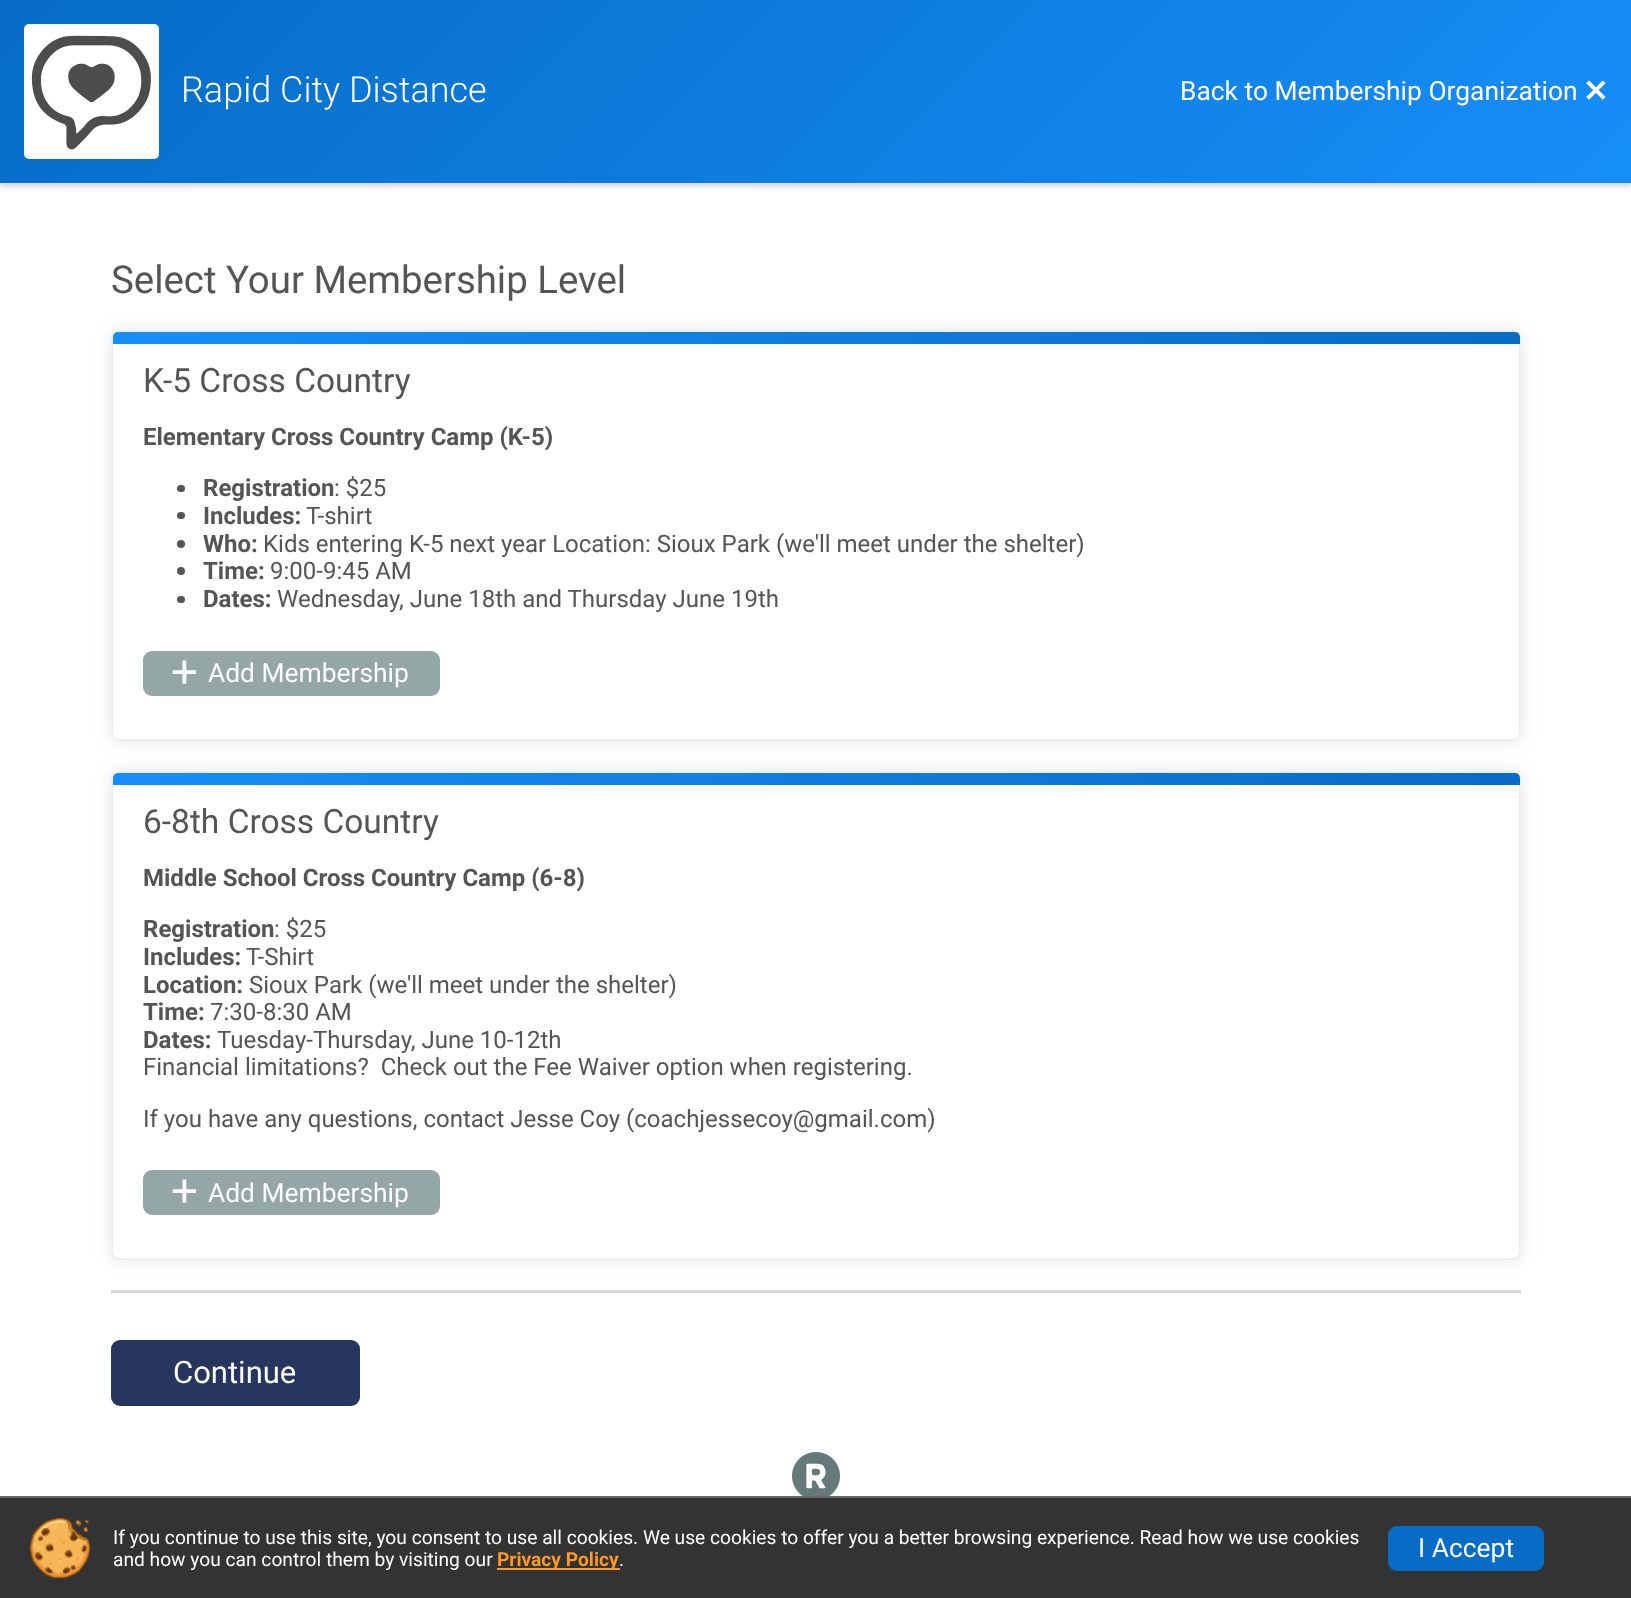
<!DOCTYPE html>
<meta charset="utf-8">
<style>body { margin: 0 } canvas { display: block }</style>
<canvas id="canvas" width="1631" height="1598"></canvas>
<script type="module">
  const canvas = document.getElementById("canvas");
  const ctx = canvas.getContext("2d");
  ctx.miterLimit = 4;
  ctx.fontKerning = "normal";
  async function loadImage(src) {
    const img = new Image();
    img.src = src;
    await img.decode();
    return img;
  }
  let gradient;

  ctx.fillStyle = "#ffffff";
  ctx.fillRect(0, 0, 1631, 1598);
  ctx.fillStyle = "rgba(0, 0, 0, 0.18)";
  ctx.filter = "blur(3px)";
  ctx.beginPath();
  ctx.rect(0, 3, 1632, 183);
  ctx.fill();
  ctx.filter = "none";
  gradient = ctx.createLinearGradient(1270, 545, 362, -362);
  gradient.addColorStop(0, "#168ef8");
  gradient.addColorStop(1, "#066cc6");
  ctx.fillStyle = gradient;
  ctx.fillRect(0, 0, 1631, 183);
  ctx.fillStyle = "#ffffff";
  ctx.beginPath();
  ctx.roundRect(24, 24, 135, 135, 5);
  ctx.fill();
  ctx.drawImage(await loadImage("img1.png"), 31, 35, 120, 115);
  ctx.font = "300 36px Roboto";
  ctx.fillText("Rapid City Distance", 181, 102);
  ctx.font = "26.4px Roboto";
  ctx.fillText("Back to Membership Organization", 1180, 100);
  ctx.drawImage(await loadImage("img2.png"), 1586, 80, 20, 20);
  ctx.font = "38.4px Roboto";
  ctx.fillStyle = "#555555";
  ctx.fillText("Select Your Membership Level", 111, 293);
  ctx.fillStyle = "rgba(0, 0, 0, 0.1)";
  ctx.filter = "blur(9px)";
  ctx.beginPath();
  ctx.roundRect(111, 330, 1410, 411, 9);
  ctx.fill();
  ctx.filter = "none";
  ctx.fillStyle = "#ffffff";
  ctx.beginPath();
  ctx.roundRect(112, 331, 1408, 409, 8);
  ctx.fill();
  ctx.strokeStyle = "#efefef";
  ctx.lineWidth = 2;
  ctx.stroke();
  gradient = ctx.createLinearGradient(1171, 692, 461, -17);
  gradient.addColorStop(0, "#066cc6");
  gradient.addColorStop(1, "#168ef8");
  ctx.fillStyle = gradient;
  ctx.beginPath();
  ctx.roundRect(113, 332, 1407, 12, [5, 5, 0, 0]);
  ctx.fill();
  ctx.font = "33.5px Roboto";
  ctx.fillStyle = "#555555";
  ctx.fillText("K-5 Cross Country", 143, 392);
  ctx.font = "bold 24px Roboto";
  ctx.fillText("Elementary Cross Country Camp (K-5)", 143, 445);
  ctx.beginPath();
  ctx.roundRect(177, 485, 8, 7, 3.5);
  ctx.fill();
  ctx.fillText("Registration", 203, 496);
  ctx.font = "24px Roboto";
  ctx.fillText(": $25", 334, 496);
  ctx.beginPath();
  ctx.roundRect(177, 512, 8, 7, 3.5);
  ctx.fill();
  ctx.font = "bold 24px Roboto";
  ctx.fillText("Includes:", 203, 524);
  ctx.font = "24px Roboto";
  ctx.fillText("T-shirt", 306, 524);
  ctx.beginPath();
  ctx.arc(181, 544, 4, 0, Math.PI * 2);
  ctx.fill();
  ctx.font = "bold 24px Roboto";
  ctx.fillText("Who:", 203, 552);
  ctx.font = "24px Roboto";
  ctx.fillText("Kids entering K-5 next year Location: Sioux Park (we'll meet under the shelter)", 263, 552);
  ctx.beginPath();
  ctx.arc(181, 571, 4, 0, Math.PI * 2);
  ctx.fill();
  ctx.font = "bold 24px Roboto";
  ctx.fillText("Time:", 203, 579);
  ctx.font = "24px Roboto";
  ctx.fillText("9:00-9:45 AM", 270, 579);
  ctx.beginPath();
  ctx.roundRect(177, 596, 8, 7, 3.5);
  ctx.fill();
  ctx.font = "bold 24px Roboto";
  ctx.fillText("Dates:", 203, 607);
  ctx.font = "24px Roboto";
  ctx.fillText("Wednesday, June 18th and Thursday June 19th", 277, 607);
  ctx.fillStyle = "#95a6a7";
  ctx.beginPath();
  ctx.roundRect(143, 651, 297, 45, 9);
  ctx.fill();
  ctx.drawImage(await loadImage("img3.png"), 172, 660, 24, 24);
  ctx.font = "26.4px Roboto";
  ctx.fillStyle = "#ffffff";
  ctx.fillText("Add Membership", 208, 682);
  ctx.fillStyle = "rgba(0, 0, 0, 0.1)";
  ctx.filter = "blur(9px)";
  ctx.beginPath();
  ctx.roundRect(111, 771, 1410, 489, 9);
  ctx.fill();
  ctx.filter = "none";
  ctx.fillStyle = "#ffffff";
  ctx.beginPath();
  ctx.roundRect(112, 772, 1408, 487, 8);
  ctx.fill();
  ctx.stroke();
  gradient = ctx.createLinearGradient(1171, 1133, 461, 424);
  gradient.addColorStop(0, "#066cc6");
  gradient.addColorStop(1, "#168ef8");
  ctx.fillStyle = gradient;
  ctx.beginPath();
  ctx.roundRect(113, 773, 1407, 12, [5, 5, 0, 0]);
  ctx.fill();
  ctx.font = "33.5px Roboto";
  ctx.fillStyle = "#555555";
  ctx.fillText("6-8th Cross Country", 143, 833);
  ctx.font = "bold 24px Roboto";
  ctx.fillText("Middle School Cross Country Camp (6-8)", 143, 886);
  ctx.fillText("Registration", 143, 937);
  ctx.font = "24px Roboto";
  ctx.fillText(": $25", 274, 937);
  ctx.font = "bold 24px Roboto";
  ctx.fillText("Includes:", 143, 965);
  ctx.font = "24px Roboto";
  ctx.fillText("T-Shirt", 246, 965);
  ctx.font = "bold 24px Roboto";
  ctx.fillText("Location:", 143, 993);
  ctx.font = "24px Roboto";
  ctx.fillText("Sioux Park (we'll meet under the shelter)", 249, 993);
  ctx.font = "bold 24px Roboto";
  ctx.fillText("Time:", 143, 1020);
  ctx.font = "24px Roboto";
  ctx.fillText("7:30-8:30 AM", 210, 1020);
  ctx.font = "bold 24px Roboto";
  ctx.fillText("Dates:", 143, 1048);
  ctx.font = "24px Roboto";
  ctx.fillText("Tuesday-Thursday, June 10-12th", 217, 1048);
  ctx.fillText("Financial limitations?  Check out the Fee Waiver option when registering.", 143, 1075);
  ctx.fillText("If you have any questions, contact Jesse Coy (coachjessecoy@gmail.com)", 143, 1127);
  ctx.fillStyle = "#95a6a7";
  ctx.beginPath();
  ctx.roundRect(143, 1170, 297, 45, 9);
  ctx.fill();
  ctx.drawImage(await loadImage("img3.png"), 172, 1179, 24, 24);
  ctx.font = "26.4px Roboto";
  ctx.fillStyle = "#ffffff";
  ctx.fillText("Add Membership", 208, 1202);
  ctx.fillStyle = "#d3dbdf";
  ctx.fillRect(111, 1290, 1410, 3);
  ctx.fillStyle = "#27365e";
  ctx.beginPath();
  ctx.roundRect(111, 1340, 249, 66, 9);
  ctx.fill();
  ctx.font = "31px Roboto";
  ctx.fillStyle = "#ffffff";
  ctx.fillText("Continue", 173, 1383);
  ctx.drawImage(await loadImage("img4.png"), 792, 1452, 48, 44);
  ctx.fillStyle = "#333333";
  ctx.fillRect(0, 1498, 1631, 100);
  ctx.fillStyle = "#666666";
  ctx.fillRect(0, 1496, 1631, 2);
  ctx.drawImage(await loadImage("img5.png"), 30, 1518, 60, 61);
  ctx.font = "19.2px Roboto";
  ctx.fillStyle = "#ffffff";
  ctx.fillText("If you continue to use this site, you consent to use all cookies. We use cookies to offer you a better browsing experience. Read how we use cookies", 113, 1544);
  ctx.fillText("and how you can control them by visiting our", 113, 1566);
  ctx.fillStyle = "#fd9926";
  ctx.fillRect(497, 1568, 123, 2);
  ctx.font = "bold 19.2px Roboto";
  ctx.fillText("Privacy Policy", 497, 1566);
  ctx.font = "19.2px Roboto";
  ctx.fillStyle = "#ffffff";
  ctx.fillText(".", 619, 1566);
  ctx.fillStyle = "#066cc6";
  ctx.beginPath();
  ctx.roundRect(1388, 1526, 156, 45, 9);
  ctx.fill();
  ctx.font = "26.4px Roboto";
  ctx.fillStyle = "#ffffff";
  ctx.fillText("I Accept", 1418, 1557);
</script>
